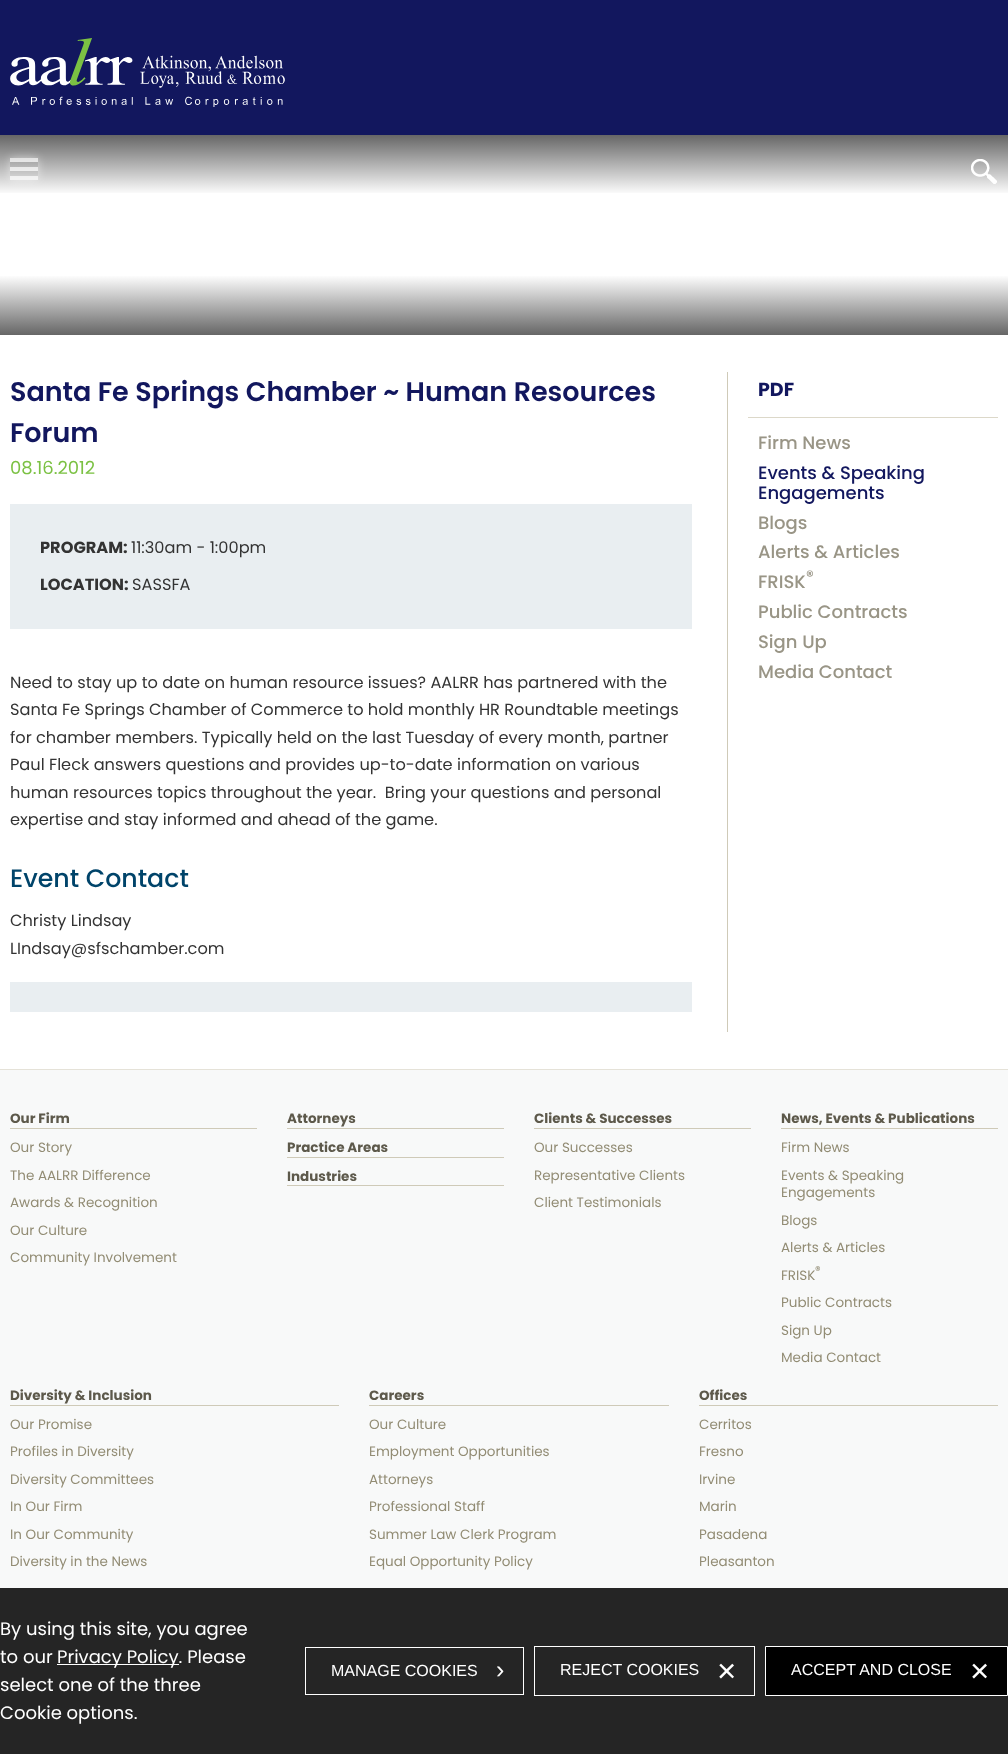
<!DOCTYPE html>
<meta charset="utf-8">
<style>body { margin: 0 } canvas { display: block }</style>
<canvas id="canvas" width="1008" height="1754"></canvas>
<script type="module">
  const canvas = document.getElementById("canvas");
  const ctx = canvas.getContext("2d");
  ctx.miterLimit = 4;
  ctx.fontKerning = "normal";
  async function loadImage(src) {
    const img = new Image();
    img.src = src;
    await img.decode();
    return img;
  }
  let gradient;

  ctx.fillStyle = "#ffffff";
  ctx.fillRect(0, 0, 1008, 1754);
  ctx.fillStyle = "#12175e";
  ctx.fillRect(0, 0, 1008, 135);
  ctx.drawImage(await loadImage("img1.png"), 10, 38, 275, 69);
  gradient = ctx.createLinearGradient(504, 135, 504, 335);
  gradient.addColorStop(0, "rgba(0, 0, 0, 0.6)");
  gradient.addColorStop(0.3, "rgba(0, 0, 0, 0)");
  ctx.fillStyle = gradient;
  ctx.fillRect(0, 135, 1008, 58);
  ctx.save();
  ctx.beginPath();
  ctx.moveTo(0, 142);
  ctx.lineTo(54, 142);
  ctx.lineTo(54, 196);
  ctx.lineTo(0, 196);
  ctx.closePath();
  ctx.moveTo(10, 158);
  ctx.lineTo(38, 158);
  ctx.lineTo(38, 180);
  ctx.lineTo(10, 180);
  ctx.closePath();
  ctx.clip("evenodd");
  ctx.fillStyle = "rgba(255, 255, 255, 0.5)";
  ctx.filter = "blur(5px)";
  ctx.beginPath();
  ctx.rect(10, 158, 28, 22);
  ctx.fill();
  ctx.filter = "none";
  ctx.restore();
  ctx.fillStyle = "rgba(255, 255, 255, 0.7)";
  ctx.fillRect(10, 158, 28, 4);
  ctx.fillRect(10, 176, 28, 4);
  ctx.fillRect(10, 167, 28, 4);
  ctx.drawImage(await loadImage("img2.png"), 971, 159, 26, 25);
  gradient = ctx.createLinearGradient(504, 335, 504, 135);
  gradient.addColorStop(0, "#666666");
  gradient.addColorStop(0.3, "#ffffff");
  ctx.fillStyle = gradient;
  ctx.fillRect(0, 276, 1008, 59);
  ctx.fillStyle = "#cfcab8";
  ctx.fillRect(727, 372, 1, 660);
  ctx.font = "600 27px Poppins";
  ctx.fillStyle = "#12175e";
  ctx.fillText("Santa Fe Springs Chamber ~ Human Resources", 10, 401);
  ctx.fillText("Forum", 10, 442);
  ctx.font = "18px Poppins";
  ctx.fillStyle = "#7bc143";
  ctx.fillText("08.16.2012", 10, 474);
  ctx.fillStyle = "#e9eef1";
  ctx.fillRect(10, 504, 682, 125);
  ctx.font = "bold 16.2px Poppins";
  ctx.fillStyle = "#333333";
  ctx.fillText("PROGRAM:", 40, 553);
  ctx.font = "16.2px Poppins";
  ctx.fillText("11:30am - 1:00pm", 131, 553);
  ctx.font = "bold 16.2px Poppins";
  ctx.fillText("LOCATION:", 40, 590);
  ctx.font = "16.2px Poppins";
  ctx.fillText("SASSFA", 132, 590);
  ctx.fillText("Need to stay up to date on human resource issues? AALRR has partnered with the", 10, 688);
  ctx.fillText("Santa Fe Springs Chamber of Commerce to hold monthly HR Roundtable meetings", 10, 715);
  ctx.fillText("for chamber members. Typically held on the last Tuesday of every month, partner", 10, 743);
  ctx.fillText("Paul Fleck answers questions and provides up-to-date information on various", 10, 770);
  ctx.fillText("human resources topics throughout the year.  Bring your questions and personal", 10, 798);
  ctx.fillText("expertise and stay informed and ahead of the game.", 10, 825);
  ctx.font = "500 25.25px Poppins";
  ctx.fillStyle = "#00446a";
  ctx.fillText("Event Contact", 10, 887);
  ctx.font = "16.2px Poppins";
  ctx.fillStyle = "#333333";
  ctx.fillText("Christy Lindsay", 10, 926);
  ctx.fillText("LIndsay@sfschamber.com", 10, 954);
  ctx.fillStyle = "#e9eef1";
  ctx.fillRect(10, 982, 682, 30);
  ctx.fillStyle = "#dcd8c9";
  ctx.fillRect(748, 417, 250, 1);
  ctx.font = "bold 19px Poppins";
  ctx.fillStyle = "#12175e";
  ctx.fillText("PDF", 758, 396);
  ctx.font = "500 18px Poppins";
  ctx.fillStyle = "#999586";
  ctx.fillText("Firm News", 758, 449);
  ctx.fillStyle = "#12175e";
  ctx.fillText("Events & Speaking", 758, 479);
  ctx.fillText("Engagements", 758, 499);
  ctx.fillStyle = "#999586";
  ctx.fillText("Blogs", 758, 529);
  ctx.fillText("Alerts & Articles", 758, 558);
  ctx.font = "500 15px Poppins";
  ctx.fillText("®", 806, 581);
  ctx.font = "500 18px Poppins";
  ctx.fillText("FRISK", 758, 588);
  ctx.fillText("Public Contracts", 758, 618);
  ctx.fillText("Sign Up", 758, 648);
  ctx.fillText("Media Contact", 758, 678);
  ctx.fillStyle = "#f8f9f9";
  ctx.fillRect(0, 1070, 1008, 684);
  ctx.fillStyle = "#e5e2d8";
  ctx.fillRect(0, 1069, 1008, 1);
  ctx.fillStyle = "#cfcab8";
  ctx.fillRect(10, 1128, 247, 1);
  ctx.font = "bold 13.5px Poppins";
  ctx.fillStyle = "#5d594b";
  ctx.fillText("Our Firm", 10, 1123);
  ctx.font = "13.5px Poppins";
  ctx.fillStyle = "#928c74";
  ctx.fillText("Our Story", 10, 1152);
  ctx.fillText("The AALRR Difference", 10, 1180);
  ctx.fillText("Awards & Recognition", 10, 1207);
  ctx.fillText("Our Culture", 10, 1235);
  ctx.fillText("Community Involvement", 10, 1262);
  ctx.fillStyle = "#cfcab8";
  ctx.fillRect(287, 1128, 217, 1);
  ctx.font = "bold 13.5px Poppins";
  ctx.fillStyle = "#5d594b";
  ctx.fillText("Attorneys", 287, 1123);
  ctx.fillStyle = "#cfcab8";
  ctx.fillRect(287, 1157, 217, 1);
  ctx.fillStyle = "#5d594b";
  ctx.fillText("Practice Areas", 287, 1152);
  ctx.fillStyle = "#cfcab8";
  ctx.fillRect(287, 1185, 217, 1);
  ctx.fillStyle = "#5d594b";
  ctx.fillText("Industries", 287, 1181);
  ctx.fillStyle = "#cfcab8";
  ctx.fillRect(534, 1128, 217, 1);
  ctx.fillStyle = "#5d594b";
  ctx.fillText("Clients & Successes", 534, 1123);
  ctx.font = "13.5px Poppins";
  ctx.fillStyle = "#928c74";
  ctx.fillText("Our Successes", 534, 1152);
  ctx.fillText("Representative Clients", 534, 1180);
  ctx.fillText("Client Testimonials", 534, 1207);
  ctx.fillStyle = "#cfcab8";
  ctx.fillRect(781, 1128, 217, 1);
  ctx.font = "bold 13.5px Poppins";
  ctx.fillStyle = "#5d594b";
  ctx.fillText("News, Events & Publications", 781, 1123);
  ctx.font = "13.5px Poppins";
  ctx.fillStyle = "#928c74";
  ctx.fillText("Firm News", 781, 1152);
  ctx.fillText("Events & Speaking", 781, 1180);
  ctx.fillText("Engagements", 781, 1197);
  ctx.fillText("Blogs", 781, 1225);
  ctx.fillText("Alerts & Articles", 781, 1252);
  ctx.font = "11px Poppins";
  ctx.fillText("®", 815, 1274);
  ctx.font = "13.5px Poppins";
  ctx.fillText("FRISK", 781, 1280);
  ctx.fillText("Public Contracts", 781, 1307);
  ctx.fillText("Sign Up", 781, 1335);
  ctx.fillText("Media Contact", 781, 1362);
  ctx.fillStyle = "#cfcab8";
  ctx.fillRect(10, 1405, 329, 1);
  ctx.font = "bold 13.5px Poppins";
  ctx.fillStyle = "#5d594b";
  ctx.fillText("Diversity & Inclusion", 10, 1400);
  ctx.font = "13.5px Poppins";
  ctx.fillStyle = "#928c74";
  ctx.fillText("Our Promise", 10, 1429);
  ctx.fillText("Profiles in Diversity", 10, 1456);
  ctx.fillText("Diversity Committees", 10, 1484);
  ctx.fillText("In Our Firm", 10, 1511);
  ctx.fillText("In Our Community", 10, 1539);
  ctx.fillText("Diversity in the News", 10, 1566);
  ctx.fillStyle = "#cfcab8";
  ctx.fillRect(369, 1405, 300, 1);
  ctx.font = "bold 13.5px Poppins";
  ctx.fillStyle = "#5d594b";
  ctx.fillText("Careers", 369, 1400);
  ctx.font = "13.5px Poppins";
  ctx.fillStyle = "#928c74";
  ctx.fillText("Our Culture", 369, 1429);
  ctx.fillText("Employment Opportunities", 369, 1456);
  ctx.fillText("Attorneys", 369, 1484);
  ctx.fillText("Professional Staff", 369, 1511);
  ctx.fillText("Summer Law Clerk Program", 369, 1539);
  ctx.fillText("Equal Opportunity Policy", 369, 1566);
  ctx.fillStyle = "#cfcab8";
  ctx.fillRect(699, 1405, 299, 1);
  ctx.font = "bold 13.5px Poppins";
  ctx.fillStyle = "#5d594b";
  ctx.fillText("Offices", 699, 1400);
  ctx.font = "13.5px Poppins";
  ctx.fillStyle = "#928c74";
  ctx.fillText("Cerritos", 699, 1429);
  ctx.fillText("Fresno", 699, 1456);
  ctx.fillText("Irvine", 699, 1484);
  ctx.fillText("Marin", 699, 1511);
  ctx.fillText("Pasadena", 699, 1539);
  ctx.fillText("Pleasanton", 699, 1566);
  ctx.fillStyle = "rgba(0, 0, 0, 0.85)";
  ctx.fillRect(0, 1588, 1008, 166);
  ctx.font = "18px Poppins";
  ctx.fillStyle = "#ffffff";
  ctx.fillText("By using this site, you agree", 0, 1635);
  ctx.fillText("to our", 0, 1663);
  ctx.fillRect(57, 1664, 122, 1);
  ctx.fillText("Privacy Policy. Please", 57, 1663);
  ctx.fillText("select one of the three", 0, 1691);
  ctx.fillText("Cookie options.", 0, 1719);
  ctx.strokeStyle = "#ffffff";
  ctx.strokeRect(305.5, 1647.5, 218, 47);
  ctx.font = "16px Liberation Sans";
  ctx.fillText("MANAGE COOKIES", 331, 1676);
  ctx.font = "25px Liberation Sans";
  ctx.fillText("›", 496, 1678);
  ctx.strokeRect(534.5, 1646.5, 220, 49);
  ctx.font = "16px Liberation Sans";
  ctx.fillText("REJECT COOKIES", 560, 1675);
  ctx.font = "33px Liberation Sans";
  ctx.fillText("×", 717, 1682);
  ctx.fillStyle = "#000000";
  ctx.beginPath();
  ctx.rect(765.5, 1646.5, 242, 49);
  ctx.fill();
  ctx.stroke();
  ctx.font = "16px Liberation Sans";
  ctx.fillStyle = "#ffffff";
  ctx.fillText("ACCEPT AND CLOSE", 791, 1675);
  ctx.font = "33px Liberation Sans";
  ctx.fillText("×", 970, 1682);
</script>
